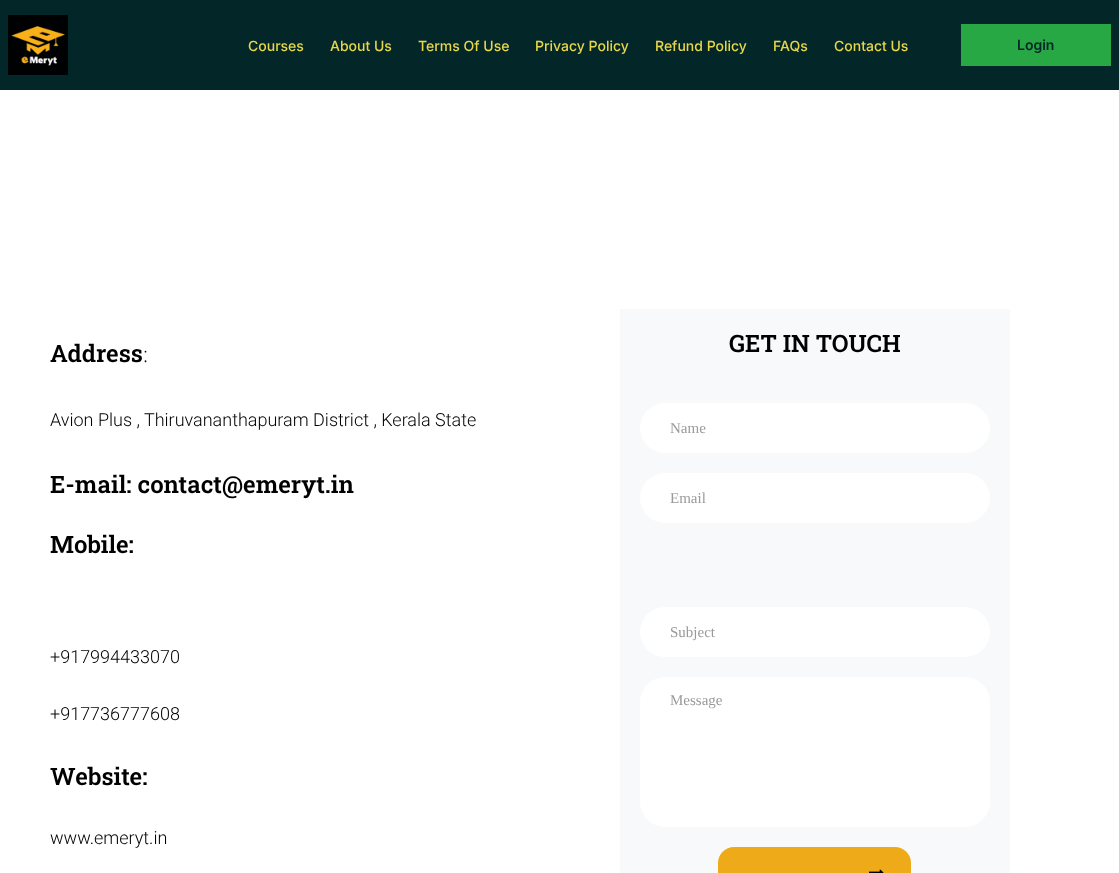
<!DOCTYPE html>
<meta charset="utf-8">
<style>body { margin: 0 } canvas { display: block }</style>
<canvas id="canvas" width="1119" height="873"></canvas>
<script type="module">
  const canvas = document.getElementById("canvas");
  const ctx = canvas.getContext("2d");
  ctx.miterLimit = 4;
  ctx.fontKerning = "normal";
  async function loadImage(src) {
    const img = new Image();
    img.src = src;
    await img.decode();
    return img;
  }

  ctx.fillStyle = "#ffffff";
  ctx.fillRect(0, 0, 1119, 873);
  ctx.fillStyle = "#032628";
  ctx.fillRect(0, 0, 1119, 90);
  ctx.drawImage(await loadImage("img1.png"), 8, 15, 60, 60);
  ctx.font = "500 14px Inter";
  ctx.fillStyle = "#e7d749";
  ctx.fillText("Courses", 248, 51);
  ctx.fillText("About Us", 330, 51);
  ctx.fillText("Terms Of Use", 418, 51);
  ctx.fillText("Privacy Policy", 535, 51);
  ctx.fillText("Refund Policy", 655, 51);
  ctx.fillText("FAQs", 773, 51);
  ctx.fillText("Contact Us", 834, 51);
  ctx.fillStyle = "#28a745";
  ctx.fillRect(961, 24, 150, 42);
  ctx.font = "600 14px Inter";
  ctx.fillStyle = "#032628";
  ctx.fillText("Login", 1017, 50);
  ctx.font = "600 24px Roboto Slab";
  ctx.fillStyle = "#000000";
  ctx.fillText("Address", 50, 362);
  ctx.font = "300 21px Open Sans";
  ctx.fillText(":", 143, 362);
  ctx.font = "300 18px Roboto";
  ctx.fillText("Avion Plus , Thiruvananthapuram District , Kerala State", 50, 426);
  ctx.font = "600 24px Roboto Slab";
  ctx.fillText("E-mail: contact@emeryt.in", 50, 493);
  ctx.fillText("Mobile:", 50, 553);
  ctx.font = "300 18px Roboto";
  ctx.fillText("+917994433070", 50, 663);
  ctx.fillText("+917736777608", 50, 720);
  ctx.font = "600 24px Roboto Slab";
  ctx.fillText("Website:", 50, 785);
  ctx.font = "300 18px Roboto";
  ctx.fillText("www.emeryt.in", 50, 844);
  ctx.fillStyle = "#f8f9fa";
  ctx.fillRect(620, 309, 390, 564);
  ctx.font = "600 24px Roboto Slab";
  ctx.fillStyle = "#000000";
  ctx.fillText("GET IN TOUCH", 729, 352);
  ctx.fillStyle = "#ffffff";
  ctx.beginPath();
  ctx.roundRect(640, 403, 350, 50, 25);
  ctx.fill();
  ctx.font = "15px Liberation Serif";
  ctx.fillStyle = "#999999";
  ctx.fillText("Name", 670, 433);
  ctx.fillStyle = "#ffffff";
  ctx.beginPath();
  ctx.roundRect(640, 473, 350, 50, 25);
  ctx.fill();
  ctx.fillStyle = "#999999";
  ctx.fillText("Email", 670, 503);
  ctx.fillStyle = "#ffffff";
  ctx.beginPath();
  ctx.roundRect(640, 607, 350, 50, 25);
  ctx.fill();
  ctx.fillStyle = "#999999";
  ctx.fillText("Subject", 670, 637);
  ctx.fillStyle = "#ffffff";
  ctx.beginPath();
  ctx.roundRect(640, 677, 350, 150, 25);
  ctx.fill();
  ctx.fillStyle = "#999999";
  ctx.fillText("Message", 670, 705);
  ctx.fillStyle = "#eeaa18";
  ctx.beginPath();
  ctx.roundRect(718, 847, 193, 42, 16);
  ctx.fill();
  ctx.drawImage(await loadImage("img2.png"), 869, 869, 15, 4);
</script>
